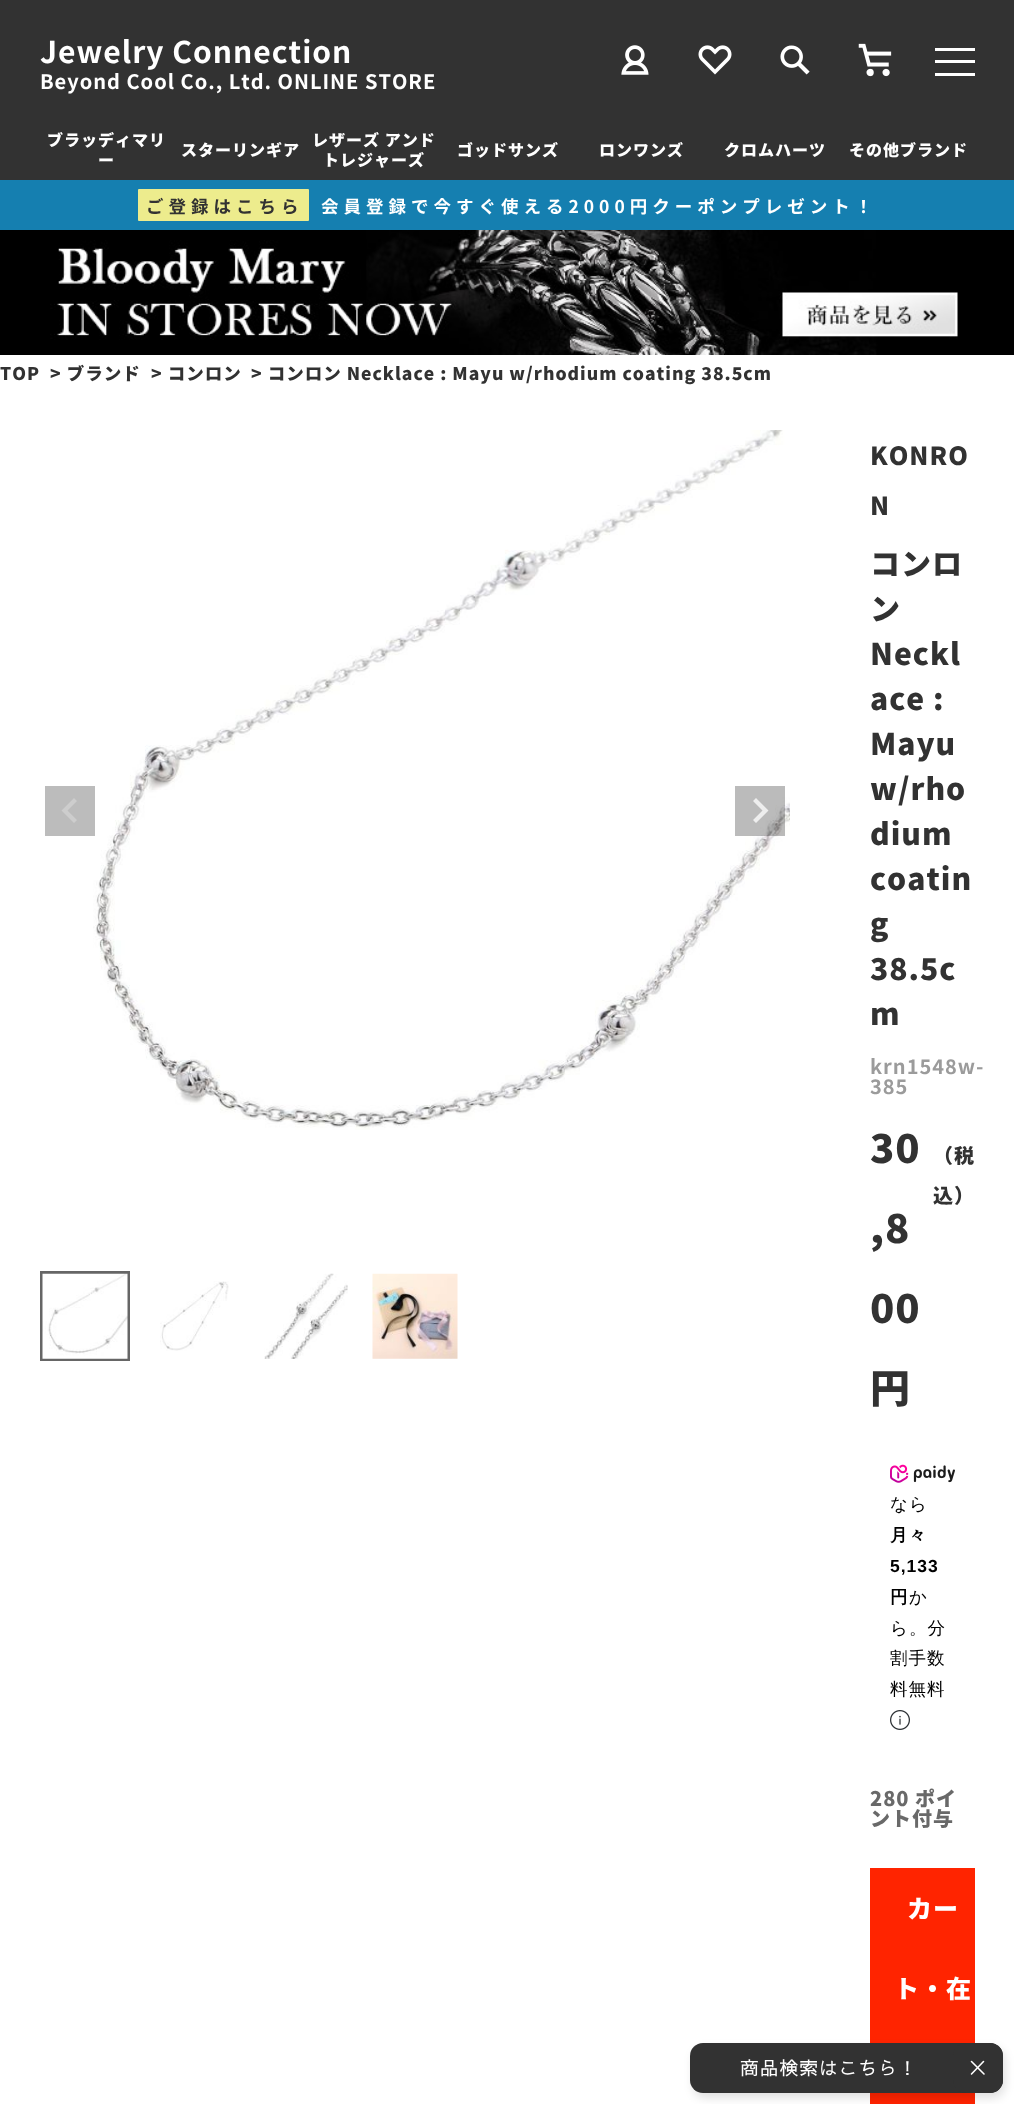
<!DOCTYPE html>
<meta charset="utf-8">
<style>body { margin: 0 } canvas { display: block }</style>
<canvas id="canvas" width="1014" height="2104"></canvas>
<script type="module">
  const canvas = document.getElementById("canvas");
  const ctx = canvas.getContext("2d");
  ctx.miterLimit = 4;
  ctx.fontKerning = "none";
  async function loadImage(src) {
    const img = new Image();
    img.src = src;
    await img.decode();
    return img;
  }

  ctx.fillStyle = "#ffffff";
  ctx.fillRect(0, 0, 1014, 2104);
  ctx.fillStyle = "#323232";
  ctx.fillRect(0, 0, 1014, 180);
  ctx.letterSpacing = "1px";
  ctx.font = "bold 30px Noto Sans JP";
  ctx.fillStyle = "#ffffff";
  ctx.fillText("Jewelry Connection", 40, 63);
  ctx.font = "bold 20px Noto Sans JP";
  ctx.fillText("Beyond Cool Co., Ltd. ONLINE STORE", 40, 89);
  ctx.drawImage(await loadImage("img1.png"), 621, 45, 28, 30);
  ctx.drawImage(await loadImage("img2.png"), 698, 45, 34, 30);
  ctx.drawImage(await loadImage("img3.png"), 780, 45, 30, 30);
  ctx.drawImage(await loadImage("img4.png"), 858, 43, 34, 34);
  ctx.font = "900 16px Noto Sans JP";
  ctx.fillText("ブラッディマリ", 47, 146);
  ctx.fillText("ー", 98, 166);
  ctx.fillText("スターリンギア", 181, 156);
  ctx.fillText("レザーズ アンド", 312, 146);
  ctx.fillText("トレジャーズ", 323, 166);
  ctx.fillText("ゴッドサンズ", 457, 156);
  ctx.fillText("ロンワンズ", 599, 156);
  ctx.fillText("クロムハーツ", 724, 156);
  ctx.fillText("その他ブランド", 849, 156);
  ctx.fillRect(935, 48, 40, 3);
  ctx.fillRect(935, 60, 40, 3);
  ctx.fillRect(935, 73, 40, 3);
  ctx.fillStyle = "#157fb0";
  ctx.fillRect(0, 180, 1014, 50);
  ctx.fillStyle = "#edec8d";
  ctx.beginPath();
  ctx.roundRect(138, 189, 171, 32, 1);
  ctx.fill();
  ctx.letterSpacing = "5px";
  ctx.font = "bold 17.5px Noto Sans JP";
  ctx.fillStyle = "#323232";
  ctx.fillText("ご登録はこちら", 146, 213);
  ctx.fillStyle = "#ffffff";
  ctx.fillText("会員登録で今すぐ使える2000円クーポンプレゼント！", 321, 213);
  ctx.fillStyle = "#000000";
  ctx.fillRect(0, 230, 1014, 125);
  ctx.drawImage(await loadImage("img5.png"), 50, 230, 908, 125);
  ctx.letterSpacing = "1px";
  ctx.font = "900 17.5px Noto Sans JP";
  ctx.fillStyle = "#323232";
  ctx.fillText("TOP", 0, 380);
  ctx.fillText("> ブランド", 50, 380);
  ctx.fillText("> コンロン", 151, 380);
  ctx.fillText("> コンロン Necklace : Mayu w/rhodium coating 38.5cm", 251, 380);
  ctx.drawImage(await loadImage("img6.png"), 93, 430, 697, 700);
  ctx.fillStyle = "#bcbcbc";
  ctx.fillRect(45, 786, 50, 50);
  ctx.fillStyle = "#cdcdcd";
  ctx.beginPath();
  ctx.moveTo(77, 801);
  ctx.lineTo(74, 798);
  ctx.lineTo(61.5, 810.5);
  ctx.lineTo(74, 823);
  ctx.lineTo(77, 820);
  ctx.lineTo(67.5, 810.5);
  ctx.closePath();
  ctx.fill();
  ctx.fillStyle = "rgba(30, 30, 30, 0.3)";
  ctx.fillRect(735, 786, 50, 50);
  ctx.fillStyle = "#eeeeee";
  ctx.beginPath();
  ctx.moveTo(756, 798);
  ctx.lineTo(753, 801);
  ctx.lineTo(762.5, 810.5);
  ctx.lineTo(753, 820);
  ctx.lineTo(756, 823);
  ctx.lineTo(768.5, 810.5);
  ctx.closePath();
  ctx.fill();
  ctx.strokeStyle = "#666666";
  ctx.lineWidth = 3;
  ctx.strokeRect(41.5, 1272.5, 87, 87);
  ctx.drawImage(await loadImage("img7.png"), 42, 1273, 86, 86);
  ctx.drawImage(await loadImage("img8.png"), 160, 1281, 69, 70);
  ctx.drawImage(await loadImage("img9.png"), 264, 1273, 84, 86);
  ctx.drawImage(await loadImage("img10.png"), 372, 1273, 86, 86);
  ctx.font = "900 25px Noto Sans JP";
  ctx.fillStyle = "#323232";
  ctx.fillText("KONRO", 870, 465);
  ctx.fillText("N", 870, 515);
  ctx.font = "900 30px Noto Sans JP";
  ctx.fillText("コンロ", 870, 575);
  ctx.fillText("ン", 870, 620);
  ctx.fillText("Neckl", 870, 665);
  ctx.fillText("ace :", 870, 710);
  ctx.fillText("Mayu", 870, 755);
  ctx.fillText("w/rho", 870, 800);
  ctx.fillText("dium", 870, 845);
  ctx.fillText("coatin", 870, 890);
  ctx.fillText("g", 870, 935);
  ctx.fillText("38.5c", 870, 980);
  ctx.fillText("m", 870, 1025);
  ctx.font = "bold 20px Noto Sans JP";
  ctx.fillStyle = "#9b9b9b";
  ctx.fillText("krn1548w-", 870, 1074);
  ctx.fillText("385", 870, 1094);
  ctx.font = "900 40px Noto Sans JP";
  ctx.fillStyle = "#323232";
  ctx.fillText("30", 870, 1163);
  ctx.fillText(",8", 870, 1243);
  ctx.fillText("00", 870, 1323);
  ctx.fillText("円", 870, 1403);
  ctx.font = "900 20px Noto Sans JP";
  ctx.fillText("（税", 933, 1163);
  ctx.fillText("込）", 933, 1203);
  ctx.drawImage(await loadImage("img11.png"), 890, 1464, 65, 19);
  ctx.font = "500 17.5px WenQuanYi Zen Hei";
  ctx.fillStyle = "#000000";
  ctx.fillText("なら", 890, 1510);
  ctx.font = "bold 17.5px WenQuanYi Zen Hei";
  ctx.fillText("月々", 890, 1541);
  ctx.font = "bold 17.5px Liberation Sans";
  ctx.fillText("5,133", 890, 1572);
  ctx.font = "bold 17.5px WenQuanYi Zen Hei";
  ctx.fillText("円", 890, 1603);
  ctx.font = "500 17.5px WenQuanYi Zen Hei";
  ctx.fillText("か", 909, 1603);
  ctx.fillText("ら。分", 890, 1634);
  ctx.fillText("割手数", 890, 1664);
  ctx.fillText("料無料", 890, 1695);
  ctx.drawImage(await loadImage("img12.png"), 890, 1710, 20, 20);
  ctx.font = "900 20px Noto Sans JP";
  ctx.fillStyle = "#696969";
  ctx.fillText("280 ポイ", 870, 1806);
  ctx.fillText("ント付与", 870, 1826);
  ctx.fillStyle = "#ff2400";
  ctx.fillRect(870, 1868, 105, 236);
  ctx.font = "900 25px Noto Sans JP";
  ctx.fillStyle = "#ffffff";
  ctx.fillText("カー", 907, 1918);
  ctx.fillText("ト・在", 894, 1998);
  ctx.fillStyle = "rgba(0, 0, 0, 0.12)";
  ctx.filter = "blur(5px)";
  ctx.beginPath();
  ctx.roundRect(693, 2048, 312, 50, 13);
  ctx.fill();
  ctx.filter = "none";
  ctx.fillStyle = "#323232";
  ctx.beginPath();
  ctx.roundRect(690, 2043, 313, 50, 13);
  ctx.fill();
  ctx.font = "18.75px Sawarabi Gothic";
  ctx.fillStyle = "#ffffff";
  ctx.fillText("商品検索はこちら！", 740, 2075);
  ctx.fillStyle = "#323232";
  ctx.beginPath();
  ctx.roundRect(953, 2043, 50, 50, 13);
  ctx.fill();
  ctx.beginPath();
  ctx.moveTo(971.5, 2061.5);
  ctx.lineTo(984, 2074);
  ctx.moveTo(971.5, 2074);
  ctx.lineTo(983.5, 2061.5);
  ctx.strokeStyle = "#ffffff";
  ctx.lineWidth = 1.6;
  ctx.lineCap = "round";
  ctx.lineJoin = "round";
  ctx.stroke();
</script>
